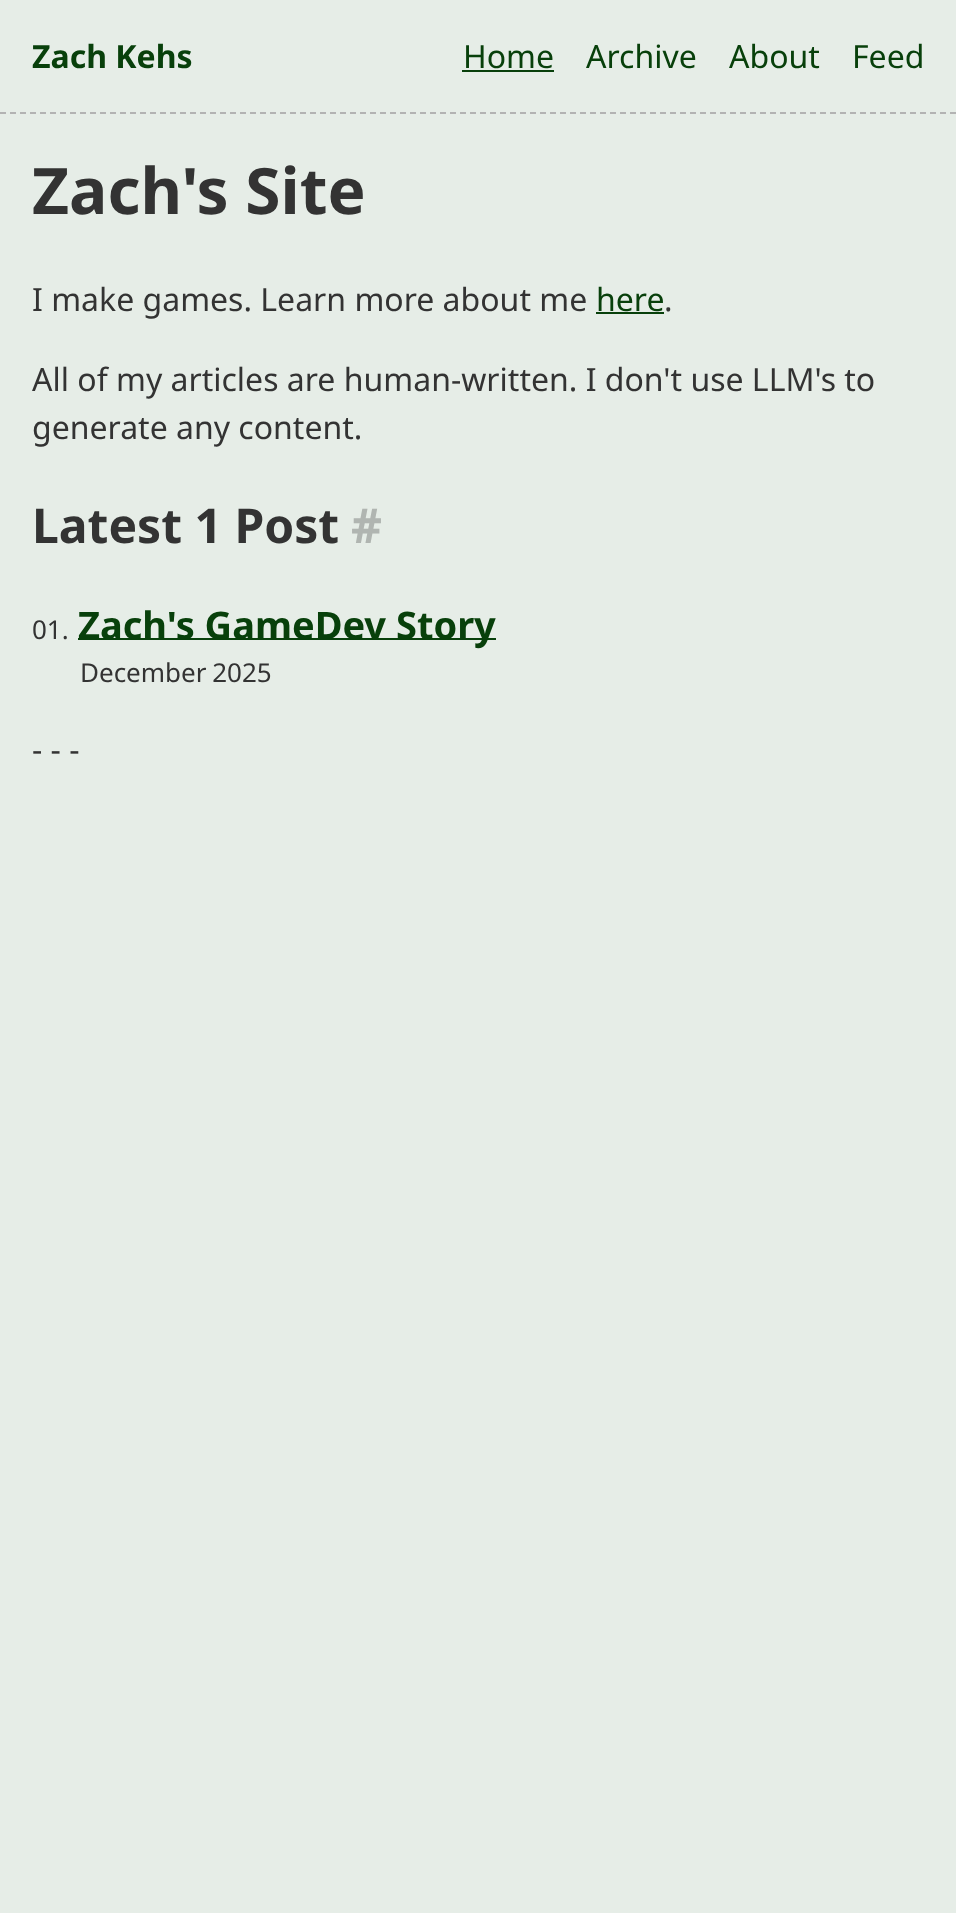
<!DOCTYPE html>
<meta charset="utf-8">
<style>body { margin: 0 } canvas { display: block }</style>
<canvas id="canvas" width="956" height="1913"></canvas>
<script type="module">
  const canvas = document.getElementById("canvas");
  const ctx = canvas.getContext("2d");
  ctx.miterLimit = 4;
  ctx.fontKerning = "normal";

  ctx.fillStyle = "#e6ede7";
  ctx.fillRect(0, 0, 956, 1913);
  ctx.beginPath();
  ctx.moveTo(0, 113);
  ctx.lineTo(956, 113);
  ctx.strokeStyle = "#b3b3b3";
  ctx.lineWidth = 2;
  ctx.setLineDash([6, 4]);
  ctx.stroke();
  ctx.font = "bold 32px Noto Sans";
  ctx.fillStyle = "#08400b";
  ctx.fillText("Zach Kehs", 32, 68);
  ctx.font = "32px Noto Sans";
  ctx.fillText("Home", 463, 68);
  ctx.fillRect(462, 70, 92, 2);
  ctx.fillText("Archive", 586, 68);
  ctx.fillText("About", 729, 68);
  ctx.fillText("Feed", 852, 68);
  ctx.font = "bold 64px Noto Sans";
  ctx.fillStyle = "#333333";
  ctx.fillText("Zach's Site", 32, 214);
  ctx.font = "32px Noto Sans";
  ctx.fillText("I make games. Learn more about me", 32, 311);
  ctx.fillStyle = "#08400b";
  ctx.fillText("here", 596, 311);
  ctx.fillRect(596, 312, 68, 2);
  ctx.fillStyle = "#333333";
  ctx.fillText(".", 664, 311);
  ctx.fillText("All of my articles are human-written. I don't use LLM's to", 32, 391);
  ctx.fillText("generate any content.", 32, 439);
  ctx.font = "bold 48px Noto Sans";
  ctx.fillText("Latest 1 Post", 32, 543);
  ctx.fillStyle = "#b0b5b1";
  ctx.fillText("#", 351, 543);
  ctx.font = "26px Noto Sans";
  ctx.fillStyle = "#333333";
  ctx.fillText("01.", 32, 639);
  ctx.fillStyle = "#08400b";
  ctx.fillRect(78, 638, 418, 2);
  ctx.font = "bold 38px Noto Sans";
  ctx.fillText("Zach's GameDev Story", 78, 639);
  ctx.wordSpacing = "-1px";
  ctx.font = "26px Noto Sans";
  ctx.fillStyle = "#333333";
  ctx.fillText("December 2025", 80, 682);
  ctx.wordSpacing = "0px";
  ctx.font = "32px Noto Sans";
  ctx.fillText("- - -", 32, 761);
</script>
